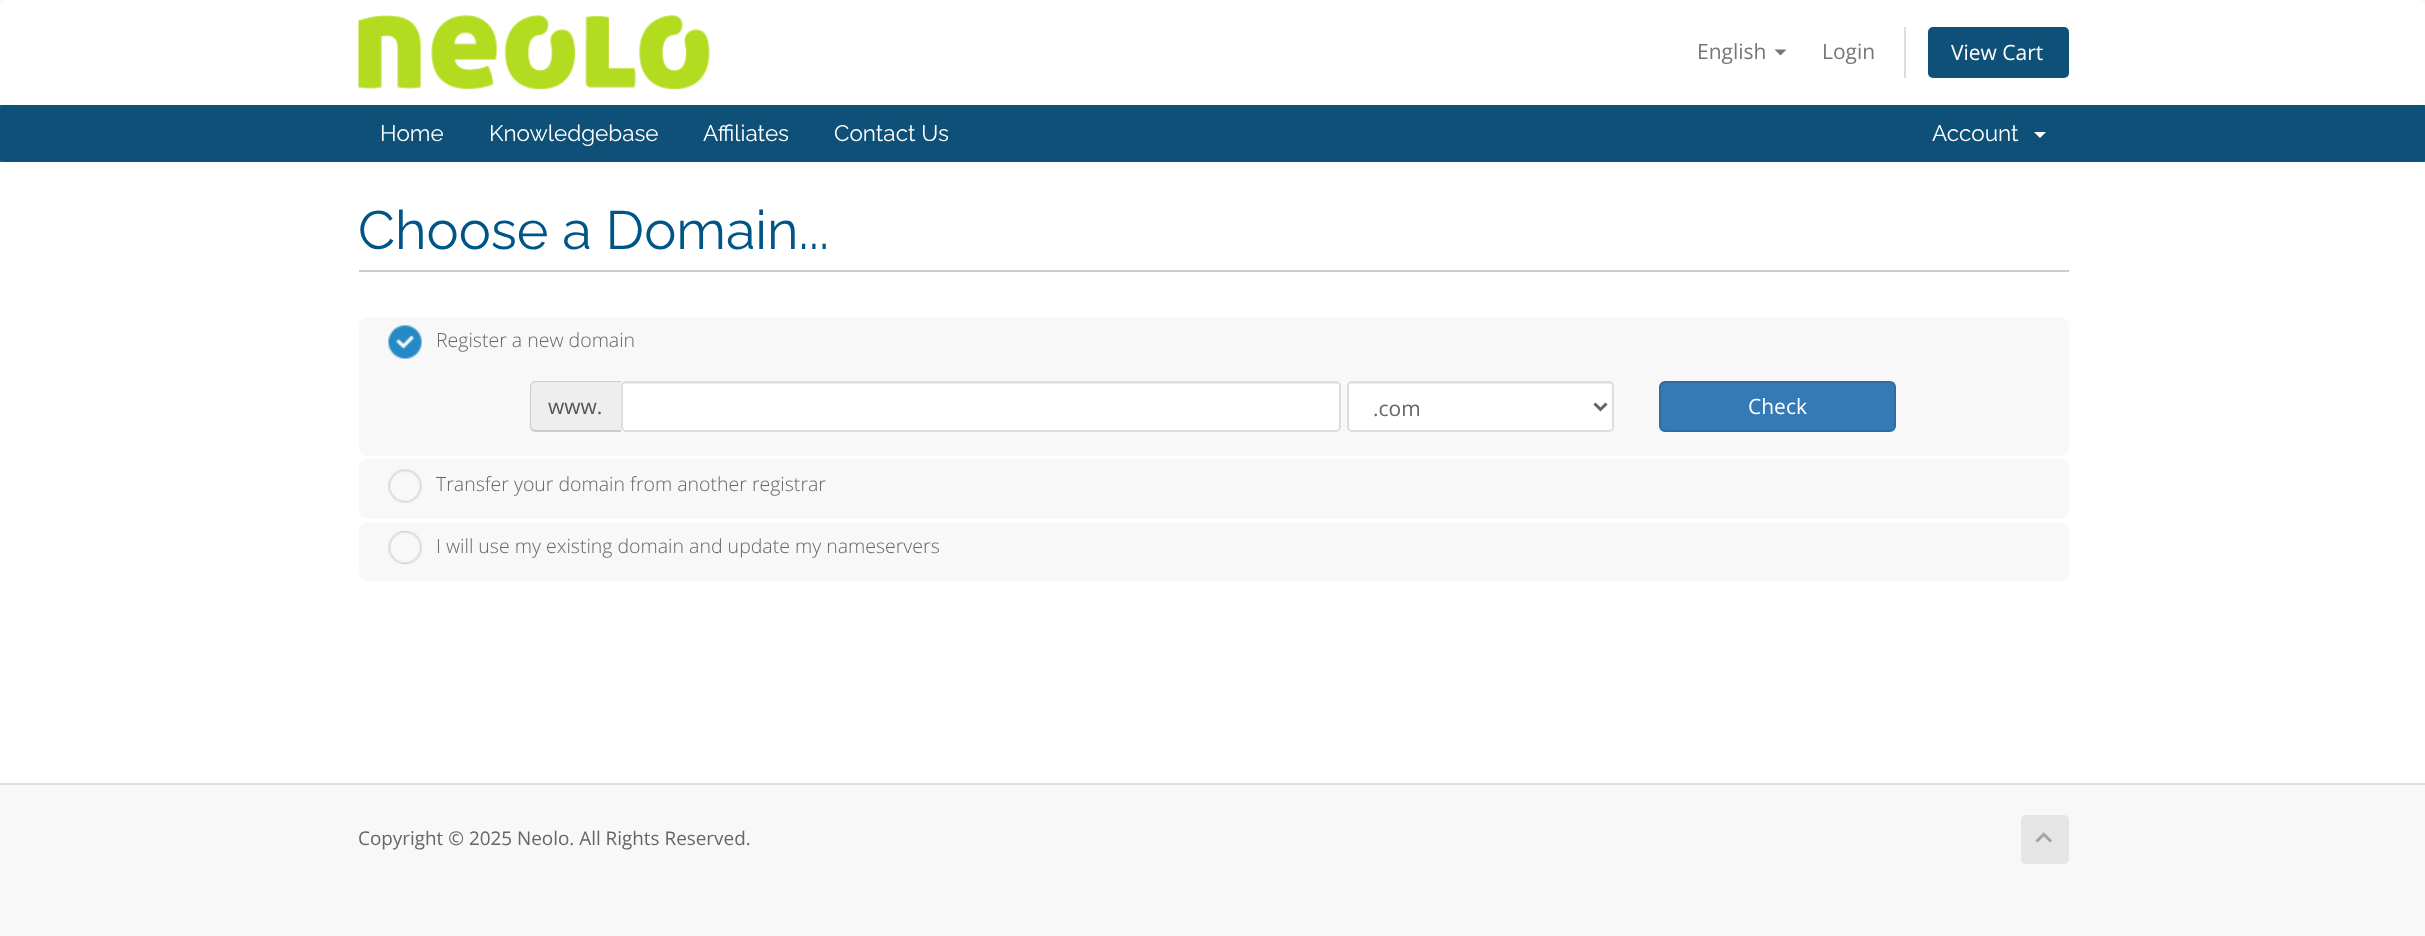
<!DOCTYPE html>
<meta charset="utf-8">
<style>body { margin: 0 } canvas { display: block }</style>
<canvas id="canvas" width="2425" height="936"></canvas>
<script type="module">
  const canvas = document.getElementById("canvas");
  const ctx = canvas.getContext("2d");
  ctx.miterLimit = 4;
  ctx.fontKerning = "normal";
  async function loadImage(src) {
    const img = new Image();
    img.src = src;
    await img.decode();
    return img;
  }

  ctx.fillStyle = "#f8f8f8";
  ctx.fillRect(0, 0, 2425, 936);
  ctx.fillStyle = "#ffffff";
  ctx.beginPath();
  ctx.moveTo(8, 0);
  ctx.lineTo(2418, 0);
  ctx.bezierCurveTo(2422.5, 0, 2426, 3.5, 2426, 8);
  ctx.lineTo(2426, 105);
  ctx.lineTo(0, 105);
  ctx.lineTo(0, 8);
  ctx.bezierCurveTo(0, 3.5, 3.5, 0, 8, 0);
  ctx.closePath();
  ctx.fill();
  ctx.drawImage(await loadImage("img1.png"), 358, 15, 352, 75);
  ctx.font = "21px Open Sans";
  ctx.fillStyle = "#777777";
  ctx.fillText("English", 1697, 59);
  ctx.beginPath();
  ctx.moveTo(1774.5, 49.5);
  ctx.lineTo(1786.5, 49.5);
  ctx.lineTo(1780.5, 55.5);
  ctx.closePath();
  ctx.fill();
  ctx.fillText("Login", 1822, 59);
  ctx.fillStyle = "#dddddd";
  ctx.fillRect(1904, 27, 2, 51);
  ctx.fillStyle = "#0e5077";
  ctx.beginPath();
  ctx.roundRect(1928, 27, 141, 51, 5);
  ctx.fill();
  ctx.fillStyle = "#ffffff";
  ctx.fillText("View Cart", 1951, 60);
  ctx.fillStyle = "#006687";
  ctx.fillRect(0, 105, 2425, 57);
  ctx.fillStyle = "#0e5077";
  ctx.beginPath();
  ctx.roundRect(0, 105, 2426, 57, 6);
  ctx.fill();
  ctx.font = "22.5px Raleway";
  ctx.fillStyle = "#ffffff";
  ctx.fillText("Home", 380, 141);
  ctx.fillText("Knowledgebase", 489, 141);
  ctx.fillText("Affiliates", 703, 141);
  ctx.fillText("Contact Us", 834, 141);
  ctx.fillText("Account", 1932, 141);
  ctx.beginPath();
  ctx.moveTo(2034, 132);
  ctx.lineTo(2046, 132);
  ctx.lineTo(2040, 138);
  ctx.closePath();
  ctx.fill();
  ctx.fillRect(0, 162, 2425, 621);
  ctx.fillStyle = "#cccccc";
  ctx.fillRect(359, 270, 1710, 2);
  ctx.font = "54px Raleway";
  ctx.fillStyle = "#005588";
  ctx.fillText("Choose a Domain...", 358, 249);
  ctx.fillStyle = "#f8f8f8";
  ctx.beginPath();
  ctx.roundRect(359, 317, 1710, 139, 9);
  ctx.fill();
  ctx.drawImage(await loadImage("img2.png"), 388, 325, 34, 34);
  ctx.font = "300 19.5px Open Sans";
  ctx.fillStyle = "#666666";
  ctx.fillText("Register a new domain", 436, 347);
  ctx.fillStyle = "#eeeeee";
  ctx.beginPath();
  ctx.roundRect(530, 381, 91, 51, [6, 0, 0, 6]);
  ctx.fill();
  ctx.fillStyle = "#cccccc";
  ctx.beginPath();
  ctx.moveTo(536, 381);
  ctx.lineTo(621, 381);
  ctx.lineTo(621, 432);
  ctx.lineTo(536, 432);
  ctx.bezierCurveTo(532, 432, 530, 429, 530, 426);
  ctx.lineTo(530, 387);
  ctx.bezierCurveTo(530, 384, 532, 381, 536, 381);
  ctx.closePath();
  ctx.moveTo(536, 382);
  ctx.lineTo(621, 382);
  ctx.lineTo(621, 430);
  ctx.lineTo(536, 430);
  ctx.bezierCurveTo(533, 430, 531, 428, 531, 426);
  ctx.lineTo(531, 387);
  ctx.bezierCurveTo(531, 385, 533, 382, 536, 382);
  ctx.closePath();
  ctx.fill("evenodd");
  ctx.font = "21px Open Sans";
  ctx.fillStyle = "#555555";
  ctx.fillText("www.", 548, 414);
  ctx.fillStyle = "#ffffff";
  ctx.beginPath();
  ctx.roundRect(621, 381, 720, 51, 5);
  ctx.fill();
  ctx.fillStyle = "#ececec";
  ctx.beginPath();
  ctx.moveTo(626, 384);
  ctx.lineTo(1336, 384);
  ctx.bezierCurveTo(1338, 384, 1340, 385, 1340, 387);
  ctx.lineTo(1340, 386);
  ctx.bezierCurveTo(1340, 384, 1339, 383, 1337, 383);
  ctx.lineTo(626, 383);
  ctx.bezierCurveTo(625, 383, 624, 384, 623, 385);
  ctx.closePath();
  ctx.fill();
  ctx.beginPath();
  ctx.roundRect(622, 382, 718, 49, 4);
  ctx.strokeStyle = "#dddddd";
  ctx.lineWidth = 2;
  ctx.stroke();
  ctx.fillStyle = "#ffffff";
  ctx.beginPath();
  ctx.roundRect(1347, 381, 267, 51, 5);
  ctx.fill();
  ctx.fillStyle = "#ececec";
  ctx.beginPath();
  ctx.moveTo(1352, 384);
  ctx.lineTo(1610, 384);
  ctx.bezierCurveTo(1611, 384, 1612, 385, 1612, 387);
  ctx.lineTo(1612, 430);
  ctx.bezierCurveTo(1613, 430, 1613, 429, 1613, 428);
  ctx.lineTo(1613, 386);
  ctx.bezierCurveTo(1613, 384, 1612, 383, 1610, 383);
  ctx.lineTo(1352, 383);
  ctx.bezierCurveTo(1351, 383, 1350, 384, 1349, 385);
  ctx.closePath();
  ctx.fill();
  ctx.beginPath();
  ctx.roundRect(1348, 382, 265, 49, 4);
  ctx.stroke();
  ctx.beginPath();
  ctx.moveTo(1594.5, 403.5);
  ctx.lineTo(1600.5, 409.5);
  ctx.lineTo(1606.5, 403.5);
  ctx.strokeStyle = "#626262";
  ctx.lineWidth = 3;
  ctx.stroke();
  ctx.fillStyle = "#666666";
  ctx.fillText(".com", 1373, 416);
  ctx.fillStyle = "#337ab7";
  ctx.beginPath();
  ctx.roundRect(1660, 382, 235, 49, 5);
  ctx.fill();
  ctx.strokeStyle = "#2e6da4";
  ctx.lineWidth = 2;
  ctx.stroke();
  ctx.fillStyle = "#ffffff";
  ctx.fillText("Check", 1748, 414);
  ctx.fillStyle = "#f8f8f8";
  ctx.beginPath();
  ctx.roundRect(359, 459, 1710, 60, 9);
  ctx.fill();
  ctx.drawImage(await loadImage("img3.png"), 388, 469, 34, 34);
  ctx.font = "300 19.5px Open Sans";
  ctx.fillStyle = "#666666";
  ctx.fillText("Transfer your domain from another registrar", 436, 491);
  ctx.fillStyle = "#f8f8f8";
  ctx.beginPath();
  ctx.roundRect(359, 522, 1710, 59, 9);
  ctx.fill();
  ctx.drawImage(await loadImage("img4.png"), 388, 531, 34, 33);
  ctx.fillStyle = "#666666";
  ctx.fillText("I will use my existing domain and update my nameservers", 436, 553);
  ctx.fillStyle = "#dddddd";
  ctx.fillRect(0, 783, 2425, 2);
  ctx.font = "18.9px Open Sans";
  ctx.fillStyle = "#666666";
  ctx.fillText("Copyright © 2025 Neolo. All Rights Reserved.", 358, 845);
  ctx.fillStyle = "#e5e5e5";
  ctx.beginPath();
  ctx.roundRect(2021, 815, 48, 49, 5);
  ctx.fill();
  ctx.drawImage(await loadImage("img5.png"), 2035, 832, 17, 11);
</script>
